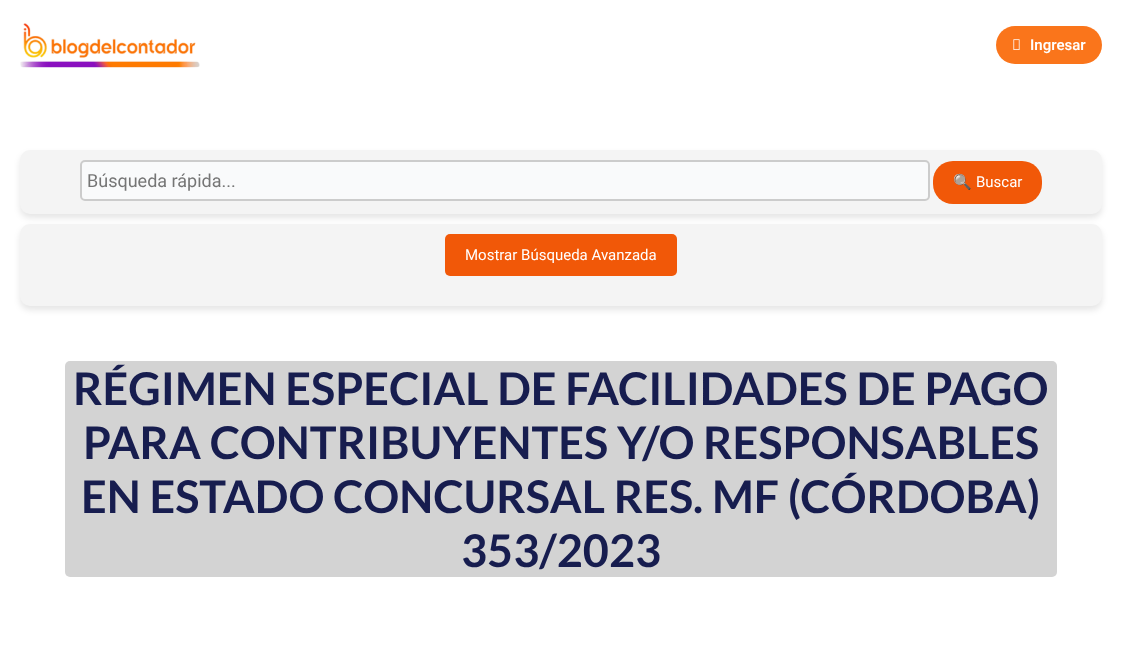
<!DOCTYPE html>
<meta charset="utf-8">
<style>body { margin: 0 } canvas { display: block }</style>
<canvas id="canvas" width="1122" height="657"></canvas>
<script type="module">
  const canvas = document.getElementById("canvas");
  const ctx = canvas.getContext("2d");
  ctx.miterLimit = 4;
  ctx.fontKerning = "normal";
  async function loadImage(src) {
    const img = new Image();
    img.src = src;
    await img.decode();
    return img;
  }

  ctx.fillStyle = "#ffffff";
  ctx.fillRect(0, 0, 1122, 657);
  ctx.drawImage(await loadImage("img1.png"), 20, 23, 180, 45);
  ctx.fillStyle = "#fa751b";
  ctx.beginPath();
  ctx.roundRect(996, 26, 106, 38, 19);
  ctx.fill();
  ctx.drawImage(await loadImage("img2.png"), 1013, 39, 7, 11);
  ctx.font = "600 15px Roboto";
  ctx.fillStyle = "#ffffff";
  ctx.fillText("Ingresar", 1030, 50);
  ctx.fillStyle = "rgba(0, 0, 0, 0.1)";
  ctx.filter = "blur(3px)";
  ctx.beginPath();
  ctx.roundRect(20, 154, 1082, 64, 10);
  ctx.fill();
  ctx.filter = "none";
  ctx.fillStyle = "#f4f4f4";
  ctx.beginPath();
  ctx.roundRect(20, 150, 1082, 64, 10);
  ctx.fill();
  ctx.fillStyle = "#f9fafb";
  ctx.beginPath();
  ctx.roundRect(81, 161, 848, 39, 4);
  ctx.fill();
  ctx.strokeStyle = "#cccccc";
  ctx.lineWidth = 2;
  ctx.stroke();
  ctx.font = "18px Roboto";
  ctx.fillStyle = "#757575";
  ctx.fillText("Búsqueda rápida...", 87, 187);
  ctx.fillStyle = "#f15808";
  ctx.beginPath();
  ctx.roundRect(933, 161, 109, 43, 20);
  ctx.fill();
  ctx.font = "15px Noto Color Emoji";
  ctx.fillStyle = "#ffffff";
  ctx.fillText("🔍", 953, 187);
  ctx.font = "15px Roboto";
  ctx.fillText("Buscar", 976, 187);
  ctx.fillStyle = "rgba(0, 0, 0, 0.1)";
  ctx.filter = "blur(3px)";
  ctx.beginPath();
  ctx.roundRect(20, 228, 1082, 82, 10);
  ctx.fill();
  ctx.filter = "none";
  ctx.fillStyle = "#f4f4f4";
  ctx.beginPath();
  ctx.roundRect(20, 224, 1082, 82, 10);
  ctx.fill();
  ctx.fillStyle = "#f15808";
  ctx.beginPath();
  ctx.roundRect(445, 234, 232, 42, 5);
  ctx.fill();
  ctx.fillStyle = "#ffffff";
  ctx.fillText("Mostrar Búsqueda Avanzada", 465, 260);
  ctx.fillStyle = "#d3d3d3";
  ctx.beginPath();
  ctx.roundRect(65, 361, 992, 216, 5);
  ctx.fill();
  ctx.font = "bold 45px Lato";
  ctx.fillStyle = "#171d4f";
  ctx.fillText("RÉGIMEN ESPECIAL DE FACILIDADES DE PAGO", 73, 405);
  ctx.fillText("PARA CONTRIBUYENTES Y/O RESPONSABLES", 83, 459);
  ctx.fillText("EN ESTADO CONCURSAL RES. MF (CÓRDOBA)", 81, 513);
  ctx.fillText("353/2023", 461, 567);
</script>
